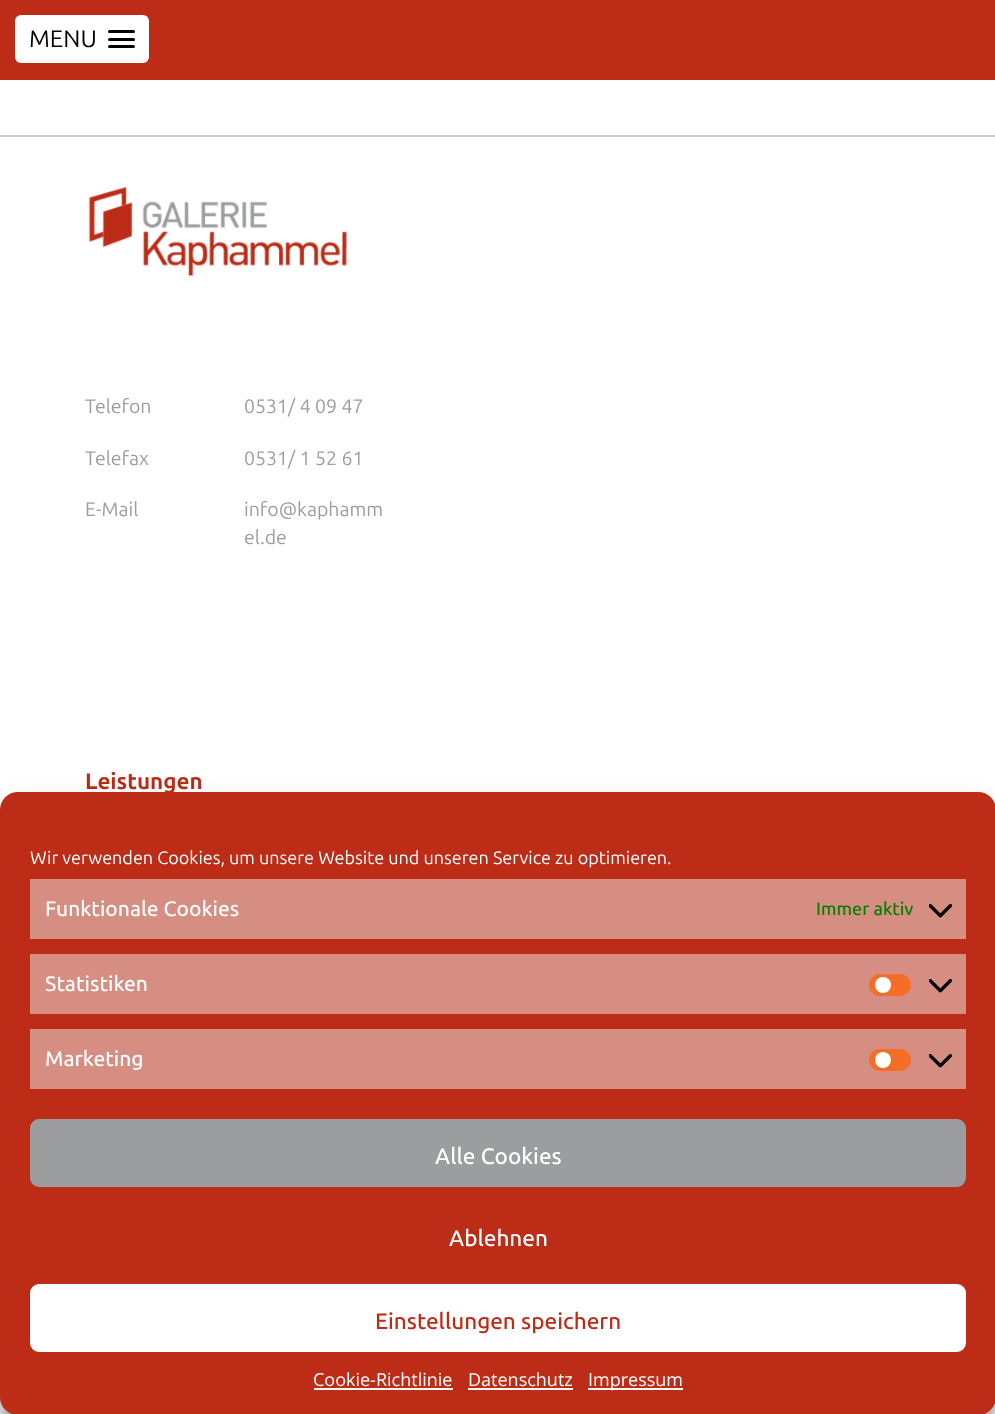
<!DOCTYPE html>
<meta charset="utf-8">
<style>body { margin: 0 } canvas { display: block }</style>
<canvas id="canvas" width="995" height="1414"></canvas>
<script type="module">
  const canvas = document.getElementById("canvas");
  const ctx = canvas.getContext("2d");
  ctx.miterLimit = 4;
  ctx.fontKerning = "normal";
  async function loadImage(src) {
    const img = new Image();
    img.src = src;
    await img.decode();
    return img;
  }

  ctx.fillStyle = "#ffffff";
  ctx.fillRect(0, 0, 995, 1414);
  ctx.fillStyle = "#bd2c16";
  ctx.fillRect(0, 0, 995, 80);
  ctx.fillStyle = "#ffffff";
  ctx.beginPath();
  ctx.roundRect(15, 15, 134, 48, 6);
  ctx.fill();
  ctx.font = "24px Ubuntu";
  ctx.fillStyle = "#000000";
  ctx.fillText("MENU", 29, 47);
  ctx.beginPath();
  ctx.roundRect(108, 30, 27, 3, 1.5);
  ctx.fill();
  ctx.beginPath();
  ctx.roundRect(108, 38, 27, 3, 1.5);
  ctx.fill();
  ctx.beginPath();
  ctx.roundRect(108, 45, 27, 3, 1.5);
  ctx.fill();
  ctx.fillStyle = "#cccccc";
  ctx.fillRect(0, 135, 995, 2);
  ctx.drawImage(await loadImage("img1.png"), 88, 186, 259, 90);
  ctx.font = "19.5px Ubuntu";
  ctx.fillStyle = "#9c9d9f";
  ctx.fillText("Telefon", 85, 413);
  ctx.fillText("0531/ 4 09 47", 244, 413);
  ctx.fillText("Telefax", 85, 465);
  ctx.fillText("0531/ 1 52 61", 244, 465);
  ctx.fillText("E-Mail", 85, 516);
  ctx.fillText("info@kaphamm", 244, 516);
  ctx.fillText("el.de", 244, 544);
  ctx.font = "bold 22.5px Ubuntu";
  ctx.fillStyle = "#bc2b16";
  ctx.fillText("Leistungen", 85, 789);
  ctx.fillStyle = "rgba(0, 0, 0, 0.23)";
  ctx.filter = "blur(4.5px)";
  ctx.beginPath();
  ctx.roundRect(0, 801, 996, 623, 18);
  ctx.fill();
  ctx.filter = "none";
  ctx.fillStyle = "rgba(0, 0, 0, 0.19)";
  ctx.filter = "blur(15px)";
  ctx.beginPath();
  ctx.roundRect(0, 807, 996, 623, 18);
  ctx.fill();
  ctx.filter = "none";
  ctx.fillStyle = "#bd2c16";
  ctx.beginPath();
  ctx.roundRect(0, 792, 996, 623, 18);
  ctx.fill();
  ctx.font = "18px Ubuntu";
  ctx.fillStyle = "#ffffff";
  ctx.fillText("Wir verwenden Cookies, um unsere Website und unseren Service zu optimieren.", 30, 864);
  ctx.fillStyle = "#d68e83";
  ctx.fillRect(30, 879, 936, 60);
  ctx.font = "500 21px Ubuntu";
  ctx.fillStyle = "#ffffff";
  ctx.fillText("Funktionale Cookies", 45, 916);
  ctx.font = "500 18px Ubuntu";
  ctx.fillStyle = "#008000";
  ctx.fillText("Immer aktiv", 816, 915);
  ctx.drawImage(await loadImage("img2.png"), 929, 904, 24, 14);
  ctx.fillStyle = "#d68e83";
  ctx.fillRect(30, 954, 936, 60);
  ctx.font = "500 21px Ubuntu";
  ctx.fillStyle = "#ffffff";
  ctx.fillText("Statistiken", 45, 991);
  ctx.fillStyle = "#f56e28";
  ctx.beginPath();
  ctx.roundRect(869, 974, 42, 22, 11);
  ctx.fill();
  ctx.fillStyle = "#ffffff";
  ctx.beginPath();
  ctx.arc(883, 985, 8, 0, Math.PI * 2);
  ctx.fill();
  ctx.drawImage(await loadImage("img2.png"), 929, 979, 24, 14);
  ctx.fillStyle = "#d68e83";
  ctx.fillRect(30, 1029, 936, 60);
  ctx.fillStyle = "#ffffff";
  ctx.fillText("Marketing", 45, 1066);
  ctx.fillStyle = "#f56e28";
  ctx.beginPath();
  ctx.roundRect(869, 1049, 42, 22, 11);
  ctx.fill();
  ctx.fillStyle = "#ffffff";
  ctx.beginPath();
  ctx.arc(883, 1060, 8, 0, Math.PI * 2);
  ctx.fill();
  ctx.drawImage(await loadImage("img2.png"), 929, 1054, 24, 14);
  ctx.fillStyle = "#9c9d9f";
  ctx.beginPath();
  ctx.roundRect(31, 1120, 934, 66, 8);
  ctx.fill();
  ctx.strokeStyle = "#9c9d9f";
  ctx.lineWidth = 2;
  ctx.stroke();
  ctx.font = "500 22.5px Ubuntu";
  ctx.fillStyle = "#ffffff";
  ctx.fillText("Alle Cookies", 435, 1164);
  ctx.fillText("Ablehnen", 449, 1246);
  ctx.beginPath();
  ctx.roundRect(31, 1285, 934, 66, 8);
  ctx.fill();
  ctx.strokeStyle = "#ffffff";
  ctx.stroke();
  ctx.fillStyle = "#bc2b16";
  ctx.fillText("Einstellungen speichern", 375, 1329);
  ctx.font = "18px Open Sans";
  ctx.fillStyle = "#ffffff";
  ctx.fillText("Cookie-Richtlinie", 313, 1386);
  ctx.fillRect(314, 1388, 139, 2);
  ctx.fillText("Datenschutz", 468, 1386);
  ctx.fillRect(468, 1388, 105, 2);
  ctx.fillRect(588, 1388, 95, 2);
  ctx.fillText("Impressum", 588, 1386);
</script>
